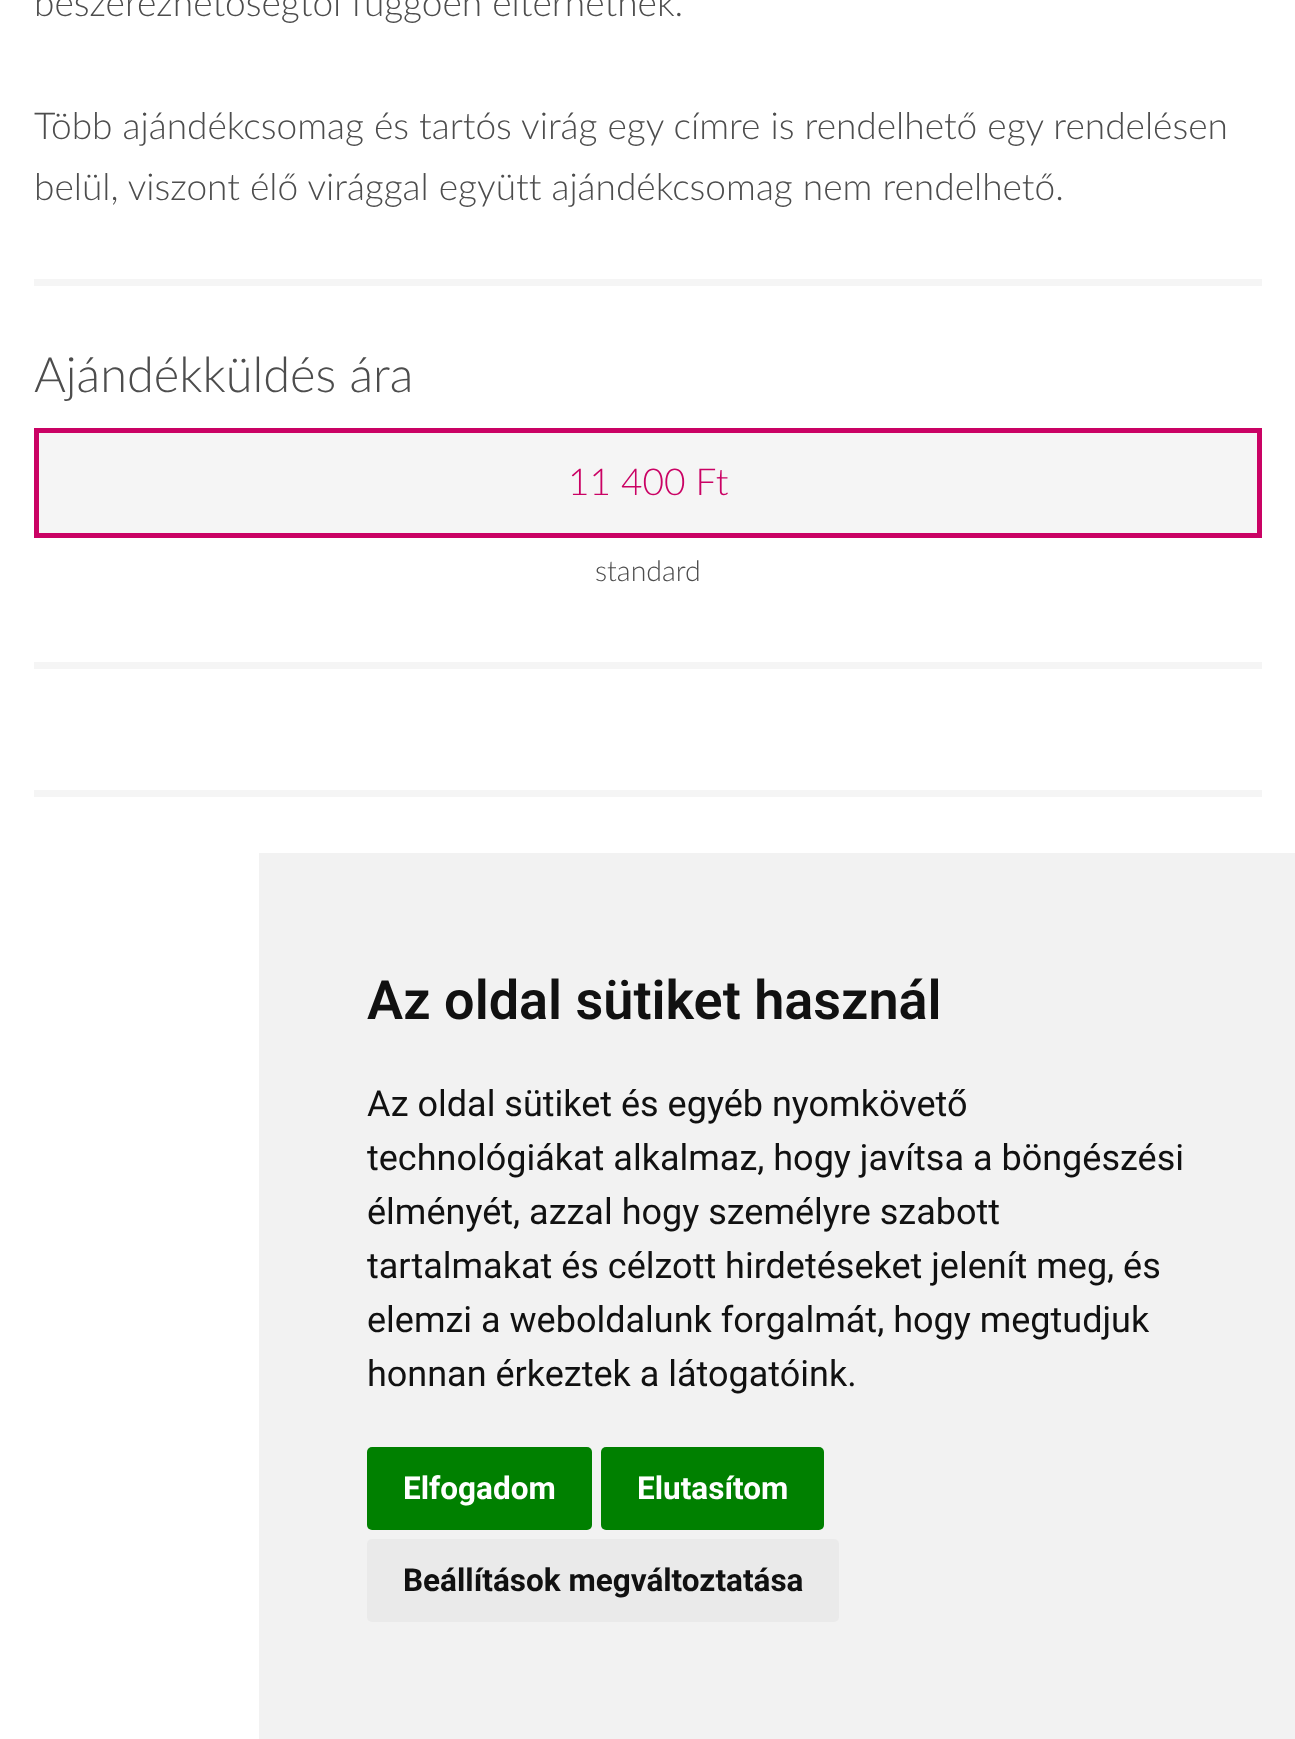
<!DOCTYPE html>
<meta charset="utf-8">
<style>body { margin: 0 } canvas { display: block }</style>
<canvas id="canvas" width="1295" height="1739"></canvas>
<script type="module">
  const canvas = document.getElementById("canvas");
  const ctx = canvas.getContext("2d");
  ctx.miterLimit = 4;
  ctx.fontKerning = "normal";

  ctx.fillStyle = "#ffffff";
  ctx.fillRect(0, 0, 1295, 1739);
  ctx.fillStyle = "#f5f5f5";
  ctx.fillRect(34, 790, 1228, 7);
  ctx.font = "300 37.1px Lato";
  ctx.fillStyle = "#4d4d4d";
  ctx.fillText("beszerezhetőségtől függően eltérhetnek.", 34, 16);
  ctx.fillText("Több ajándékcsomag és tartós virág egy címre is rendelhető egy rendelésen", 34, 139);
  ctx.fillText("belül, viszont élő virággal együtt ajándékcsomag nem rendelhető.", 34, 200);
  ctx.fillStyle = "#f5f5f5";
  ctx.fillRect(34, 279, 1228, 7);
  ctx.font = "300 48.75px Lato";
  ctx.fillStyle = "#4d4d4d";
  ctx.fillText("Ajándékküldés ára", 34, 392);
  ctx.fillStyle = "#f5f5f5";
  ctx.beginPath();
  ctx.rect(36.5, 430.5, 1223, 105);
  ctx.fill();
  ctx.strokeStyle = "#ca0264";
  ctx.lineWidth = 5;
  ctx.stroke();
  ctx.font = "300 37.1px Lato";
  ctx.fillStyle = "#ca0264";
  ctx.fillText("11 400 Ft", 568, 495);
  ctx.font = "300 28.5px Lato";
  ctx.fillStyle = "#4d4d4d";
  ctx.fillText("standard", 595, 581);
  ctx.fillStyle = "#f5f5f5";
  ctx.fillRect(34, 662, 1228, 7);
  ctx.fillStyle = "#f2f2f2";
  ctx.fillRect(259, 853, 1036, 886);
  ctx.font = "600 54px Roboto";
  ctx.fillStyle = "#111111";
  ctx.fillText("Az oldal sütiket használ", 367, 1019);
  ctx.font = "36px Roboto";
  ctx.fillText("Az oldal sütiket és egyéb nyomkövető", 367, 1116);
  ctx.fillText("technológiákat alkalmaz, hogy javítsa a böngészési", 367, 1170);
  ctx.fillText("élményét, azzal hogy személyre szabott", 367, 1224);
  ctx.fillText("tartalmakat és célzott hirdetéseket jelenít meg, és", 367, 1278);
  ctx.fillText("elemzi a weboldalunk forgalmát, hogy megtudjuk", 367, 1332);
  ctx.fillText("honnan érkeztek a látogatóink.", 367, 1386);
  ctx.fillStyle = "#008000";
  ctx.beginPath();
  ctx.roundRect(367, 1447, 225, 83, 5);
  ctx.fill();
  ctx.font = "bold 31.5px Roboto";
  ctx.fillStyle = "#ffffff";
  ctx.fillText("Elfogadom", 403, 1499);
  ctx.fillStyle = "#008000";
  ctx.beginPath();
  ctx.roundRect(601, 1447, 223, 83, 5);
  ctx.fill();
  ctx.fillStyle = "#ffffff";
  ctx.fillText("Elutasítom", 637, 1499);
  ctx.fillStyle = "#eaeaea";
  ctx.beginPath();
  ctx.roundRect(367, 1539, 472, 83, 5);
  ctx.fill();
  ctx.fillStyle = "#111111";
  ctx.fillText("Beállítások megváltoztatása", 403, 1591);
</script>
